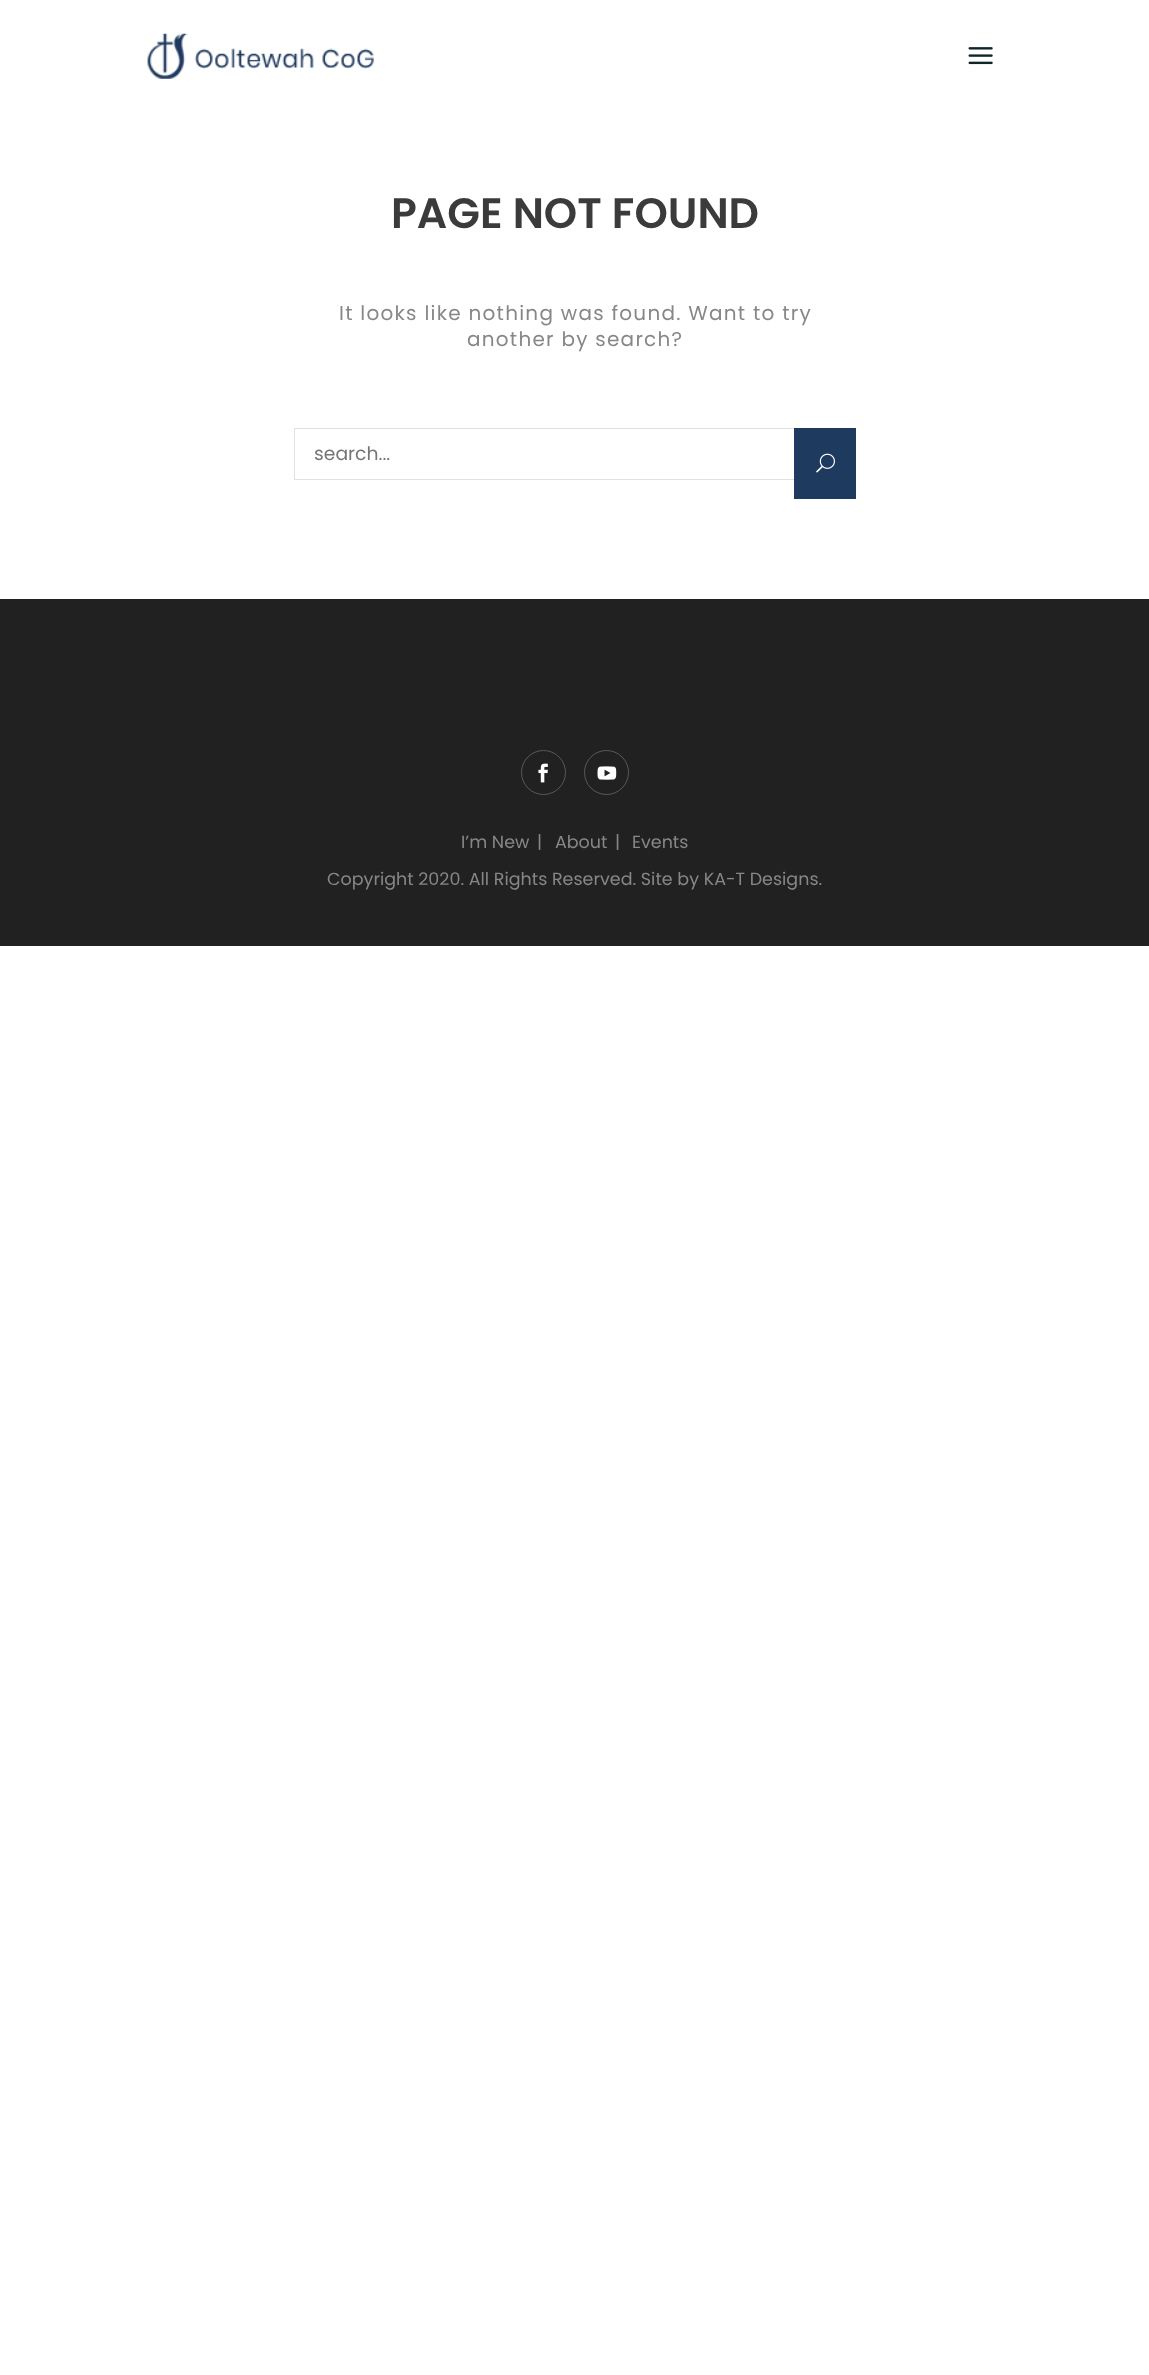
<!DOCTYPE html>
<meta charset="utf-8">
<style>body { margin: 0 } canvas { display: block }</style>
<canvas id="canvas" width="1149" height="2375"></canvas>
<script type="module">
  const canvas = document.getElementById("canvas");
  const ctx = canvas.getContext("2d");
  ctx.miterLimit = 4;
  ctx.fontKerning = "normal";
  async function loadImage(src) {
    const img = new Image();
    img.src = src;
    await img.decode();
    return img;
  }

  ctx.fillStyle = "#ffffff";
  ctx.fillRect(0, 0, 1149, 2375);
  ctx.drawImage(await loadImage("img1.png"), 147, 33, 227, 46);
  ctx.drawImage(await loadImage("img2.png"), 968, 47, 25, 18);
  ctx.font = "600 42.5px Poppins";
  ctx.fillStyle = "#3b3b3b";
  ctx.fillText("PAGE NOT FOUND", 391, 228);
  ctx.letterSpacing = "1.25px";
  ctx.font = "20px Poppins";
  ctx.fillStyle = "#878787";
  ctx.fillText("It looks like nothing was found. Want to try", 339, 320);
  ctx.fillText("another by search?", 467, 346);
  ctx.strokeStyle = "#e1e1e1";
  ctx.strokeRect(294.5, 428.5, 561, 51);
  ctx.letterSpacing = "0px";
  ctx.font = "18.75px Poppins";
  ctx.fillStyle = "#757575";
  ctx.fillText("search...", 314, 460);
  ctx.fillStyle = "#1f3a5f";
  ctx.fillRect(794, 428, 62, 71);
  ctx.drawImage(await loadImage("img3.png"), 816, 453, 19, 20);
  ctx.fillStyle = "#212121";
  ctx.fillRect(0, 599, 1149, 347);
  ctx.beginPath();
  ctx.arc(543.5, 772.5, 22, 0, Math.PI * 2);
  ctx.strokeStyle = "#595959";
  ctx.stroke();
  ctx.drawImage(await loadImage("img4.png"), 538, 763, 10, 20);
  ctx.beginPath();
  ctx.arc(606.5, 772.5, 22, 0, Math.PI * 2);
  ctx.stroke();
  ctx.drawImage(await loadImage("img5.png"), 597, 766, 20, 14);
  ctx.font = "17.5px Poppins";
  ctx.fillStyle = "#878787";
  ctx.fillText("I’m New", 461, 848);
  ctx.fillText("|", 537, 848);
  ctx.fillText("About", 555, 848);
  ctx.fillText("|", 615, 848);
  ctx.fillText("Events", 632, 848);
  ctx.fillText("Copyright 2020. All Rights Reserved. Site by KA-T Designs.", 327, 885);
</script>
